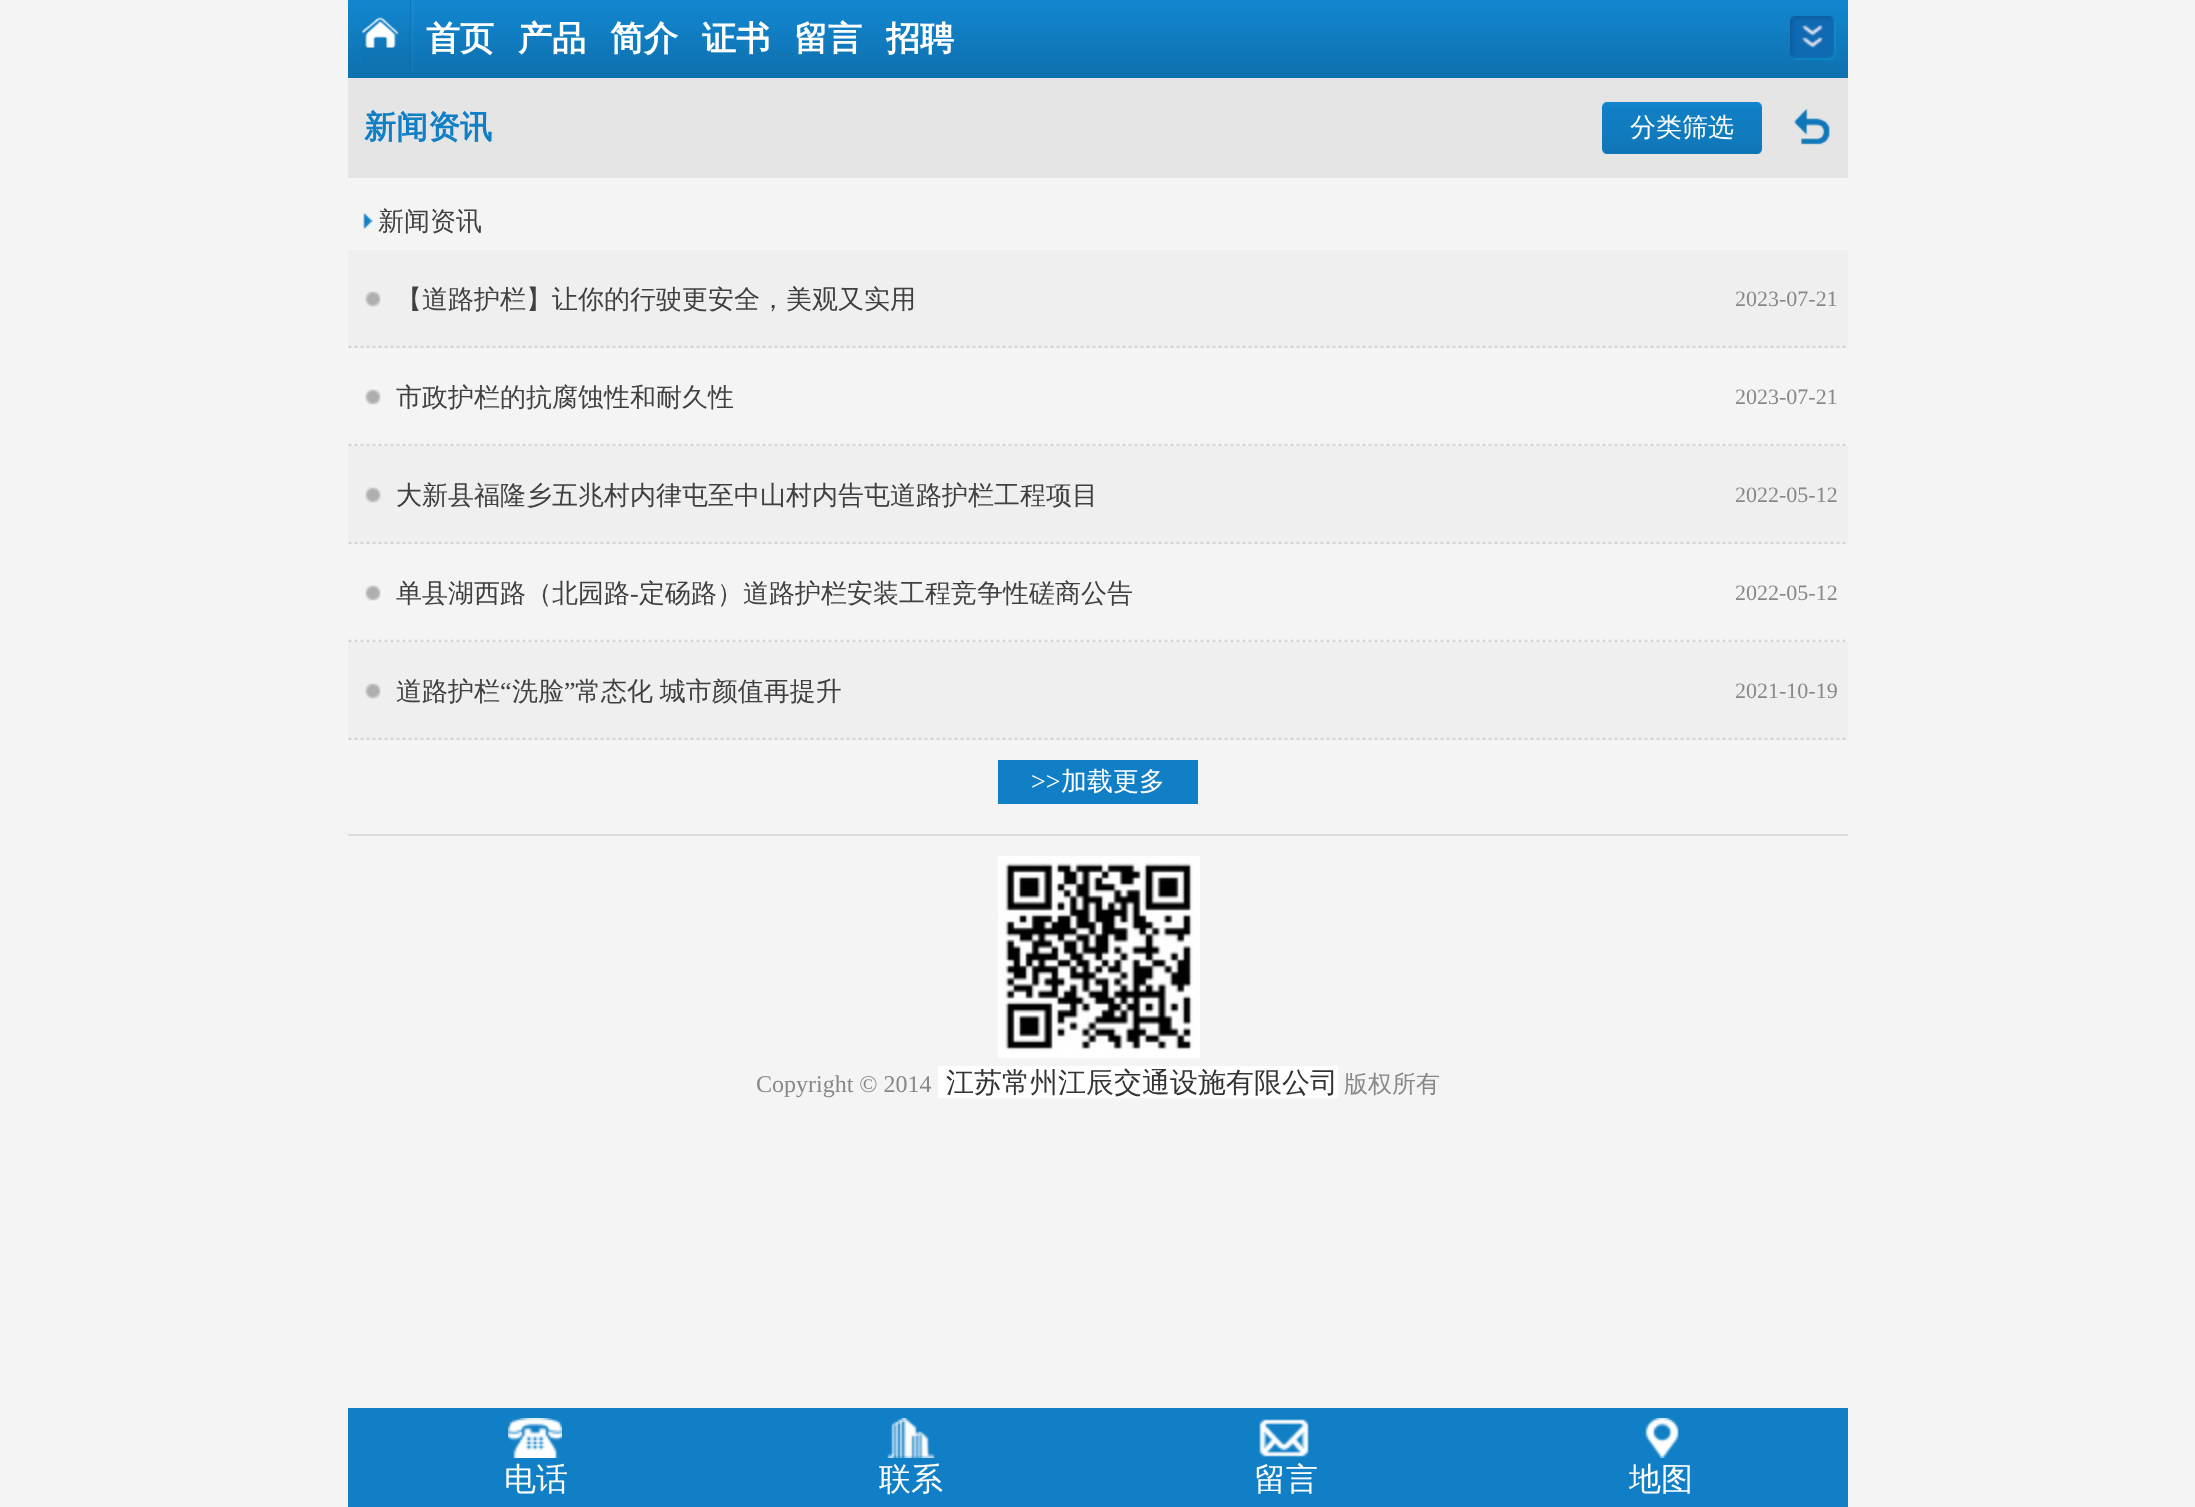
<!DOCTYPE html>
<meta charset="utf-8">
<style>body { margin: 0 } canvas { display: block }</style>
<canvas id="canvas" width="2195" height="1507"></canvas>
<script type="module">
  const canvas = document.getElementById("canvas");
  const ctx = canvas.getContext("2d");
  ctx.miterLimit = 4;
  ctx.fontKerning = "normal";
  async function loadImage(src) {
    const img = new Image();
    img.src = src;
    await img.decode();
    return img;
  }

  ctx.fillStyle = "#f4f4f4";
  ctx.fillRect(0, 0, 2195, 1507);
  ctx.drawImage(await loadImage("img1.png"), 348, 0, 1500, 78);
  ctx.drawImage(await loadImage("img2.png"), 362, 0, 51, 70);
  ctx.font = "bold 34px WenQuanYi Zen Hei";
  ctx.fillStyle = "#ffffff";
  ctx.fillText("首页", 426, 50);
  ctx.fillText("产品", 518, 50);
  ctx.fillText("简介", 610, 50);
  ctx.fillText("证书", 702, 50);
  ctx.fillText("留言", 794, 50);
  ctx.fillText("招聘", 886, 50);
  ctx.drawImage(await loadImage("img3.png"), 1790, 16, 46, 44);
  ctx.fillStyle = "#e5e5e5";
  ctx.fillRect(348, 78, 1500, 100);
  ctx.font = "bold 32px WenQuanYi Zen Hei";
  ctx.fillStyle = "#117fc5";
  ctx.fillText("新闻资讯", 364, 138);
  ctx.drawImage(await loadImage("img4.png"), 1602, 102, 160, 52);
  ctx.font = "500 26px WenQuanYi Zen Hei";
  ctx.fillStyle = "#ffffff";
  ctx.fillText("分类筛选", 1630, 136);
  ctx.drawImage(await loadImage("img5.png"), 1794, 109, 36, 36);
  ctx.drawImage(await loadImage("img6.png"), 363, 213, 10, 16);
  ctx.fillStyle = "#404040";
  ctx.fillText("新闻资讯", 378, 230);
  ctx.fillStyle = "#efefef";
  ctx.fillRect(348, 250, 1500, 98);
  ctx.drawImage(await loadImage("img7.png"), 348, 345, 1498, 3);
  ctx.drawImage(await loadImage("img8.png"), 365, 291, 16, 16);
  ctx.fillStyle = "#404040";
  ctx.fillText("【道路护栏】让你的行驶更安全，美观又实用", 396, 308);
  ctx.font = "22px Liberation Serif";
  ctx.fillStyle = "#888888";
  ctx.fillText("2023-07-21", 1735, 306);
  ctx.drawImage(await loadImage("img9.png"), 348, 443, 1498, 3);
  ctx.drawImage(await loadImage("img10.png"), 365, 389, 16, 16);
  ctx.font = "500 26px WenQuanYi Zen Hei";
  ctx.fillStyle = "#404040";
  ctx.fillText("市政护栏的抗腐蚀性和耐久性", 396, 406);
  ctx.font = "22px Liberation Serif";
  ctx.fillStyle = "#888888";
  ctx.fillText("2023-07-21", 1735, 404);
  ctx.fillStyle = "#efefef";
  ctx.fillRect(348, 446, 1500, 98);
  ctx.drawImage(await loadImage("img7.png"), 348, 541, 1498, 3);
  ctx.drawImage(await loadImage("img8.png"), 365, 487, 16, 16);
  ctx.font = "500 26px WenQuanYi Zen Hei";
  ctx.fillStyle = "#404040";
  ctx.fillText("大新县福隆乡五兆村内律屯至中山村内告屯道路护栏工程项目", 396, 504);
  ctx.font = "22px Liberation Serif";
  ctx.fillStyle = "#888888";
  ctx.fillText("2022-05-12", 1735, 502);
  ctx.drawImage(await loadImage("img9.png"), 348, 639, 1498, 3);
  ctx.drawImage(await loadImage("img10.png"), 365, 585, 16, 16);
  ctx.font = "500 26px WenQuanYi Zen Hei";
  ctx.fillStyle = "#404040";
  ctx.fillText("单县湖西路（北园路", 396, 602);
  ctx.font = "26px Liberation Serif";
  ctx.fillText("-", 630, 602);
  ctx.font = "500 26px WenQuanYi Zen Hei";
  ctx.fillText("定砀路）道路护栏安装工程竞争性磋商公告", 639, 602);
  ctx.font = "22px Liberation Serif";
  ctx.fillStyle = "#888888";
  ctx.fillText("2022-05-12", 1735, 600);
  ctx.fillStyle = "#efefef";
  ctx.fillRect(348, 642, 1500, 98);
  ctx.drawImage(await loadImage("img7.png"), 348, 737, 1498, 3);
  ctx.drawImage(await loadImage("img8.png"), 365, 683, 16, 16);
  ctx.font = "500 26px WenQuanYi Zen Hei";
  ctx.fillStyle = "#404040";
  ctx.fillText("道路护栏", 396, 700);
  ctx.font = "26px Liberation Serif";
  ctx.fillText("“", 500, 700);
  ctx.font = "500 26px WenQuanYi Zen Hei";
  ctx.fillText("洗脸", 512, 700);
  ctx.font = "26px Liberation Serif";
  ctx.fillText("”", 564, 700);
  ctx.wordSpacing = "-1px";
  ctx.font = "500 26px WenQuanYi Zen Hei";
  ctx.fillText("常态化 城市颜值再提升", 575, 700);
  ctx.wordSpacing = "0px";
  ctx.font = "22px Liberation Serif";
  ctx.fillStyle = "#888888";
  ctx.fillText("2021-10-19", 1735, 698);
  ctx.fillStyle = "#117fc5";
  ctx.fillRect(998, 760, 200, 44);
  ctx.font = "26px Liberation Serif";
  ctx.fillStyle = "#ffffff";
  ctx.fillText(">>", 1031, 790);
  ctx.font = "500 26px WenQuanYi Zen Hei";
  ctx.fillText("加载更多", 1061, 790);
  ctx.fillStyle = "#dcdcdc";
  ctx.fillRect(348, 834, 1500, 2);
  ctx.drawImage(await loadImage("img11.png"), 998, 856, 202, 202);
  ctx.font = "24px Liberation Serif";
  ctx.fillStyle = "#888888";
  ctx.fillText("Copyright © 2014", 756, 1092);
  ctx.fillStyle = "#ffffff";
  ctx.fillRect(938, 1066, 400, 32);
  ctx.font = "500 28px WenQuanYi Zen Hei";
  ctx.fillStyle = "#333333";
  ctx.fillText("江苏常州江辰交通设施有限公司", 946, 1092);
  ctx.font = "500 24px WenQuanYi Zen Hei";
  ctx.fillStyle = "#888888";
  ctx.fillText("版权所有", 1344, 1092);
  ctx.fillStyle = "#117fc5";
  ctx.fillRect(348, 1408, 1500, 99);
  ctx.drawImage(await loadImage("img12.png"), 508, 1418, 54, 40);
  ctx.font = "500 32px WenQuanYi Zen Hei";
  ctx.fillStyle = "#ffffff";
  ctx.fillText("电话", 504, 1490);
  ctx.drawImage(await loadImage("img13.png"), 887, 1418, 48, 40);
  ctx.fillText("联系", 879, 1490);
  ctx.drawImage(await loadImage("img14.png"), 1259, 1419, 50, 38);
  ctx.fillText("留言", 1254, 1490);
  ctx.drawImage(await loadImage("img15.png"), 1645, 1418, 34, 40);
  ctx.fillText("地图", 1629, 1490);
</script>
